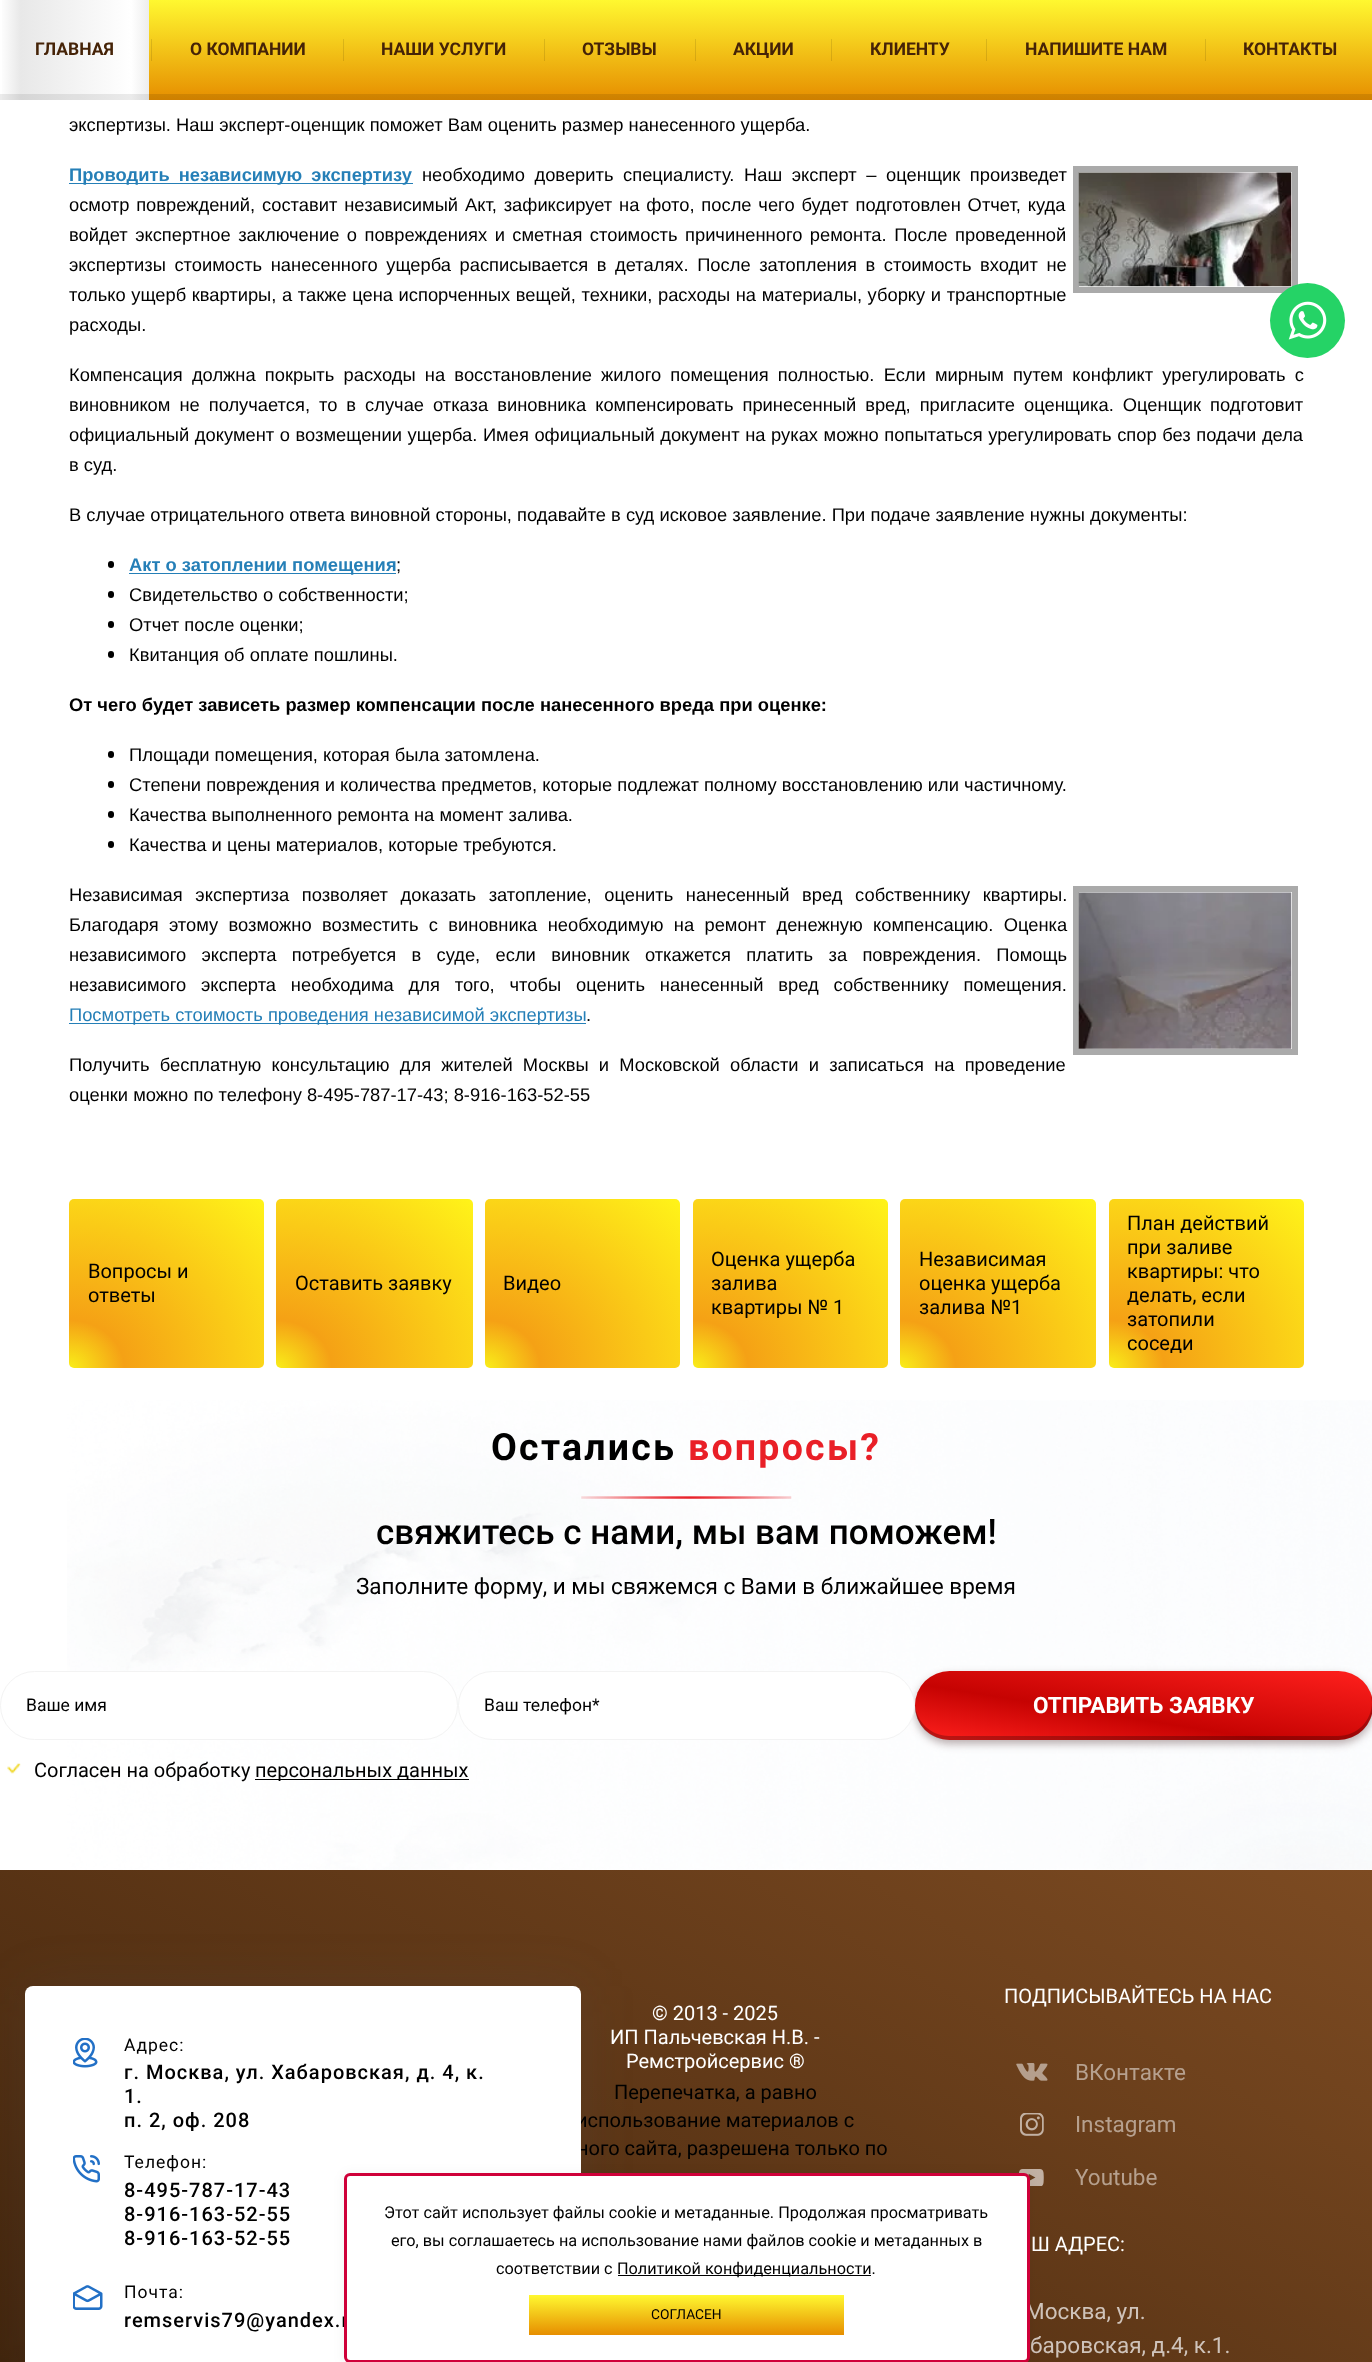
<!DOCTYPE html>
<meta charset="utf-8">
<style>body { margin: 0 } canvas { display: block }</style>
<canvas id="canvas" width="1372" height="2362"></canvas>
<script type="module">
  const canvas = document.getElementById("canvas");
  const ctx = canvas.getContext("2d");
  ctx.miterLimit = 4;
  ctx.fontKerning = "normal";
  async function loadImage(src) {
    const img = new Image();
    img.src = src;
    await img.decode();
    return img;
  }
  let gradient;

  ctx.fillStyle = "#ffffff";
  ctx.fillRect(0, 0, 1372, 2362);
  gradient = ctx.createLinearGradient(686, 100, 686, 0);
  gradient.addColorStop(0, "#e68e00");
  gradient.addColorStop(1, "#fff830");
  ctx.fillStyle = gradient;
  ctx.fillRect(149, 0, 1223, 100);
  ctx.fillStyle = "rgba(0, 0, 0, 0.1)";
  ctx.fillRect(149, 94, 1223, 6);
  gradient = ctx.createLinearGradient(0, 50, 149, 50);
  gradient.addColorStop(0, "#ffffff");
  gradient.addColorStop(0.14, "#e8e8e8");
  gradient.addColorStop(0.88, "#ffffff");
  gradient.addColorStop(1, "#ededed");
  ctx.fillStyle = gradient;
  ctx.fillRect(2, 0, 147, 100);
  ctx.fillStyle = "rgba(0, 0, 0, 0.08)";
  ctx.fillRect(0, 94, 149, 6);
  ctx.font = "bold 17.5px Roboto";
  ctx.fillStyle = "#452307";
  ctx.fillText("ГЛАВНАЯ", 35, 55);
  ctx.fillStyle = "rgba(0, 0, 0, 0.11)";
  ctx.fillRect(151, 39, 1, 22);
  ctx.fillStyle = "#452307";
  ctx.fillText("О КОМПАНИИ", 190, 55);
  ctx.fillStyle = "rgba(0, 0, 0, 0.11)";
  ctx.fillRect(343, 39, 1, 22);
  ctx.fillStyle = "#452307";
  ctx.fillText("НАШИ УСЛУГИ", 381, 55);
  ctx.fillStyle = "rgba(0, 0, 0, 0.11)";
  ctx.fillRect(544, 39, 1, 22);
  ctx.fillStyle = "#452307";
  ctx.fillText("ОТЗЫВЫ", 582, 55);
  ctx.fillStyle = "rgba(0, 0, 0, 0.11)";
  ctx.fillRect(695, 39, 1, 22);
  ctx.fillStyle = "#452307";
  ctx.fillText("АКЦИИ", 733, 55);
  ctx.fillStyle = "rgba(0, 0, 0, 0.11)";
  ctx.fillRect(831, 39, 1, 22);
  ctx.fillStyle = "#452307";
  ctx.fillText("КЛИЕНТУ", 870, 55);
  ctx.fillStyle = "rgba(0, 0, 0, 0.11)";
  ctx.fillRect(986, 39, 1, 22);
  ctx.fillStyle = "#452307";
  ctx.fillText("НАПИШИТЕ НАМ", 1025, 55);
  ctx.fillStyle = "rgba(0, 0, 0, 0.11)";
  ctx.fillRect(1205, 39, 1, 22);
  ctx.fillStyle = "#452307";
  ctx.fillText("КОНТАКТЫ", 1243, 55);
  ctx.font = "18.33px Liberation Sans";
  ctx.fillStyle = "#000000";
  ctx.fillText("экспертизы. Наш эксперт-оценщик поможет Вам оценить размер нанесенного ущерба.", 69, 131);
  ctx.fillStyle = "#257fb7";
  ctx.fillRect(69, 183, 344, 1);
  ctx.wordSpacing = "4px";
  ctx.font = "bold 18.33px Liberation Sans";
  ctx.fillText("Проводить независимую экспертизу", 69, 181);
  ctx.strokeStyle = "#aaaaaa";
  ctx.lineWidth = 6;
  ctx.strokeRect(1076, 169, 219, 121);
  ctx.drawImage(await loadImage("img1.png"), 1078, 172, 214, 115);
  ctx.wordSpacing = "4.5px";
  ctx.font = "18.33px Liberation Sans";
  ctx.fillStyle = "#000000";
  ctx.fillText("необходимо доверить специалисту. Наш эксперт – оценщик произведет", 422, 181);
  ctx.wordSpacing = "1.75px";
  ctx.fillText("осмотр повреждений, составит независимый Акт, зафиксирует на фото, после чего будет подготовлен Отчет, куда", 69, 211);
  ctx.wordSpacing = "2.4px";
  ctx.fillText("войдет экспертное заключение о повреждениях и сметная стоимость причиненного ремонта. После проведенной", 69, 241);
  ctx.wordSpacing = "3.5px";
  ctx.fillText("экспертизы стоимость нанесенного ущерба расписывается в деталях. После затопления в стоимость входит не", 69, 271);
  ctx.wordSpacing = "0.5px";
  ctx.fillText("только ущерб квартиры, а также цена испорченных вещей, техники, расходы на материалы, уборку и транспортные", 69, 301);
  ctx.wordSpacing = "0px";
  ctx.fillText("расходы.", 69, 331);
  ctx.wordSpacing = "4.1px";
  ctx.fillText("Компенсация должна покрыть расходы на восстановление жилого помещения полностью. Если мирным путем конфликт урегулировать с", 69, 381);
  ctx.wordSpacing = "3.9px";
  ctx.fillText("виновником не получается, то в случае отказа виновника компенсировать принесенный вред, пригласите оценщика. Оценщик подготовит", 69, 411);
  ctx.wordSpacing = "0.5px";
  ctx.fillText("официальный документ о возмещении ущерба. Имея официальный документ на руках можно попытаться урегулировать спор без подачи дела", 69, 441);
  ctx.wordSpacing = "0px";
  ctx.fillText("в суд.", 69, 471);
  ctx.fillText("В случае отрицательного ответа виновной стороны, подавайте в суд исковое заявление. При подаче заявление нужны документы:", 69, 521);
  ctx.beginPath();
  ctx.roundRect(108, 561, 6, 7, 3);
  ctx.fill();
  ctx.fillStyle = "#257fb7";
  ctx.fillRect(129, 573, 267, 1);
  ctx.font = "bold 18.33px Liberation Sans";
  ctx.fillText("Акт о затоплении помещения", 129, 571);
  ctx.font = "18.33px Liberation Sans";
  ctx.fillStyle = "#000000";
  ctx.fillText(";", 396, 571);
  ctx.beginPath();
  ctx.roundRect(108, 591, 6, 7, 3);
  ctx.fill();
  ctx.fillText("Свидетельство о собственности;", 129, 601);
  ctx.beginPath();
  ctx.roundRect(108, 621, 6, 7, 3);
  ctx.fill();
  ctx.fillText("Отчет после оценки;", 129, 631);
  ctx.beginPath();
  ctx.roundRect(108, 651, 6, 7, 3);
  ctx.fill();
  ctx.fillText("Квитанция об оплате пошлины.", 129, 661);
  ctx.font = "bold 18.33px Liberation Sans";
  ctx.fillText("От чего будет зависеть размер компенсации после нанесенного вреда при оценке:", 69, 711);
  ctx.beginPath();
  ctx.roundRect(108, 751, 6, 7, 3);
  ctx.fill();
  ctx.font = "18.33px Liberation Sans";
  ctx.fillText("Площади помещения, которая была затомлена.", 129, 761);
  ctx.beginPath();
  ctx.roundRect(108, 781, 6, 7, 3);
  ctx.fill();
  ctx.fillText("Степени повреждения и количества предметов, которые подлежат полному восстановлению или частичному.", 129, 791);
  ctx.beginPath();
  ctx.roundRect(108, 811, 6, 7, 3);
  ctx.fill();
  ctx.fillText("Качества выполненного ремонта на момент залива.", 129, 821);
  ctx.beginPath();
  ctx.roundRect(108, 841, 6, 7, 3);
  ctx.fill();
  ctx.fillText("Качества и цены материалов, которые требуются.", 129, 851);
  ctx.wordSpacing = "7.5px";
  ctx.fillText("Независимая экспертиза позволяет доказать затопление, оценить нанесенный вред собственнику квартиры.", 69, 901);
  ctx.strokeRect(1076, 889, 219, 163);
  ctx.drawImage(await loadImage("img2.png"), 1078, 892, 214, 157);
  ctx.wordSpacing = "5.25px";
  ctx.fillText("Благодаря этому возможно возместить с виновника необходимую на ремонт денежную компенсацию. Оценка", 69, 931);
  ctx.wordSpacing = "10.25px";
  ctx.fillText("независимого эксперта потребуется в суде, если виновник откажется платить за повреждения. Помощь", 69, 961);
  ctx.wordSpacing = "9.75px";
  ctx.fillText("независимого эксперта необходима для того, чтобы оценить нанесенный вред собственнику помещения.", 69, 991);
  ctx.fillStyle = "#257fb7";
  ctx.fillRect(69, 1023, 517, 1);
  ctx.wordSpacing = "0px";
  ctx.fillText("Посмотреть стоимость проведения независимой экспертизы", 69, 1021);
  ctx.fillStyle = "#000000";
  ctx.fillText(".", 586, 1021);
  ctx.wordSpacing = "5.1px";
  ctx.fillText("Получить бесплатную консультацию для жителей Москвы и Московской области и записаться на проведение", 69, 1071);
  ctx.wordSpacing = "0px";
  ctx.fillText("оценки можно по телефону 8-495-787-17-43; 8-916-163-52-55", 69, 1101);
  gradient = ctx.createRadialGradient(69, 1579.78, 0, 69, 1579.78, 276);
  gradient.addColorStop(0, "#f9ee19");
  gradient.addColorStop(0.2, "#f5a115");
  gradient.addColorStop(1, "#fff419");
  ctx.fillStyle = gradient;
  ctx.beginPath();
  ctx.roundRect(69, 1199, 195, 169, 5);
  ctx.save();
  ctx.clip();
  ctx.scale(1, 239 / 276);
  ctx.fillRect(0, 0, 1372, 2728);
  ctx.restore();
  ctx.font = "20px Roboto";
  ctx.fillStyle = "#000000";
  ctx.fillText("Вопросы и", 88, 1278);
  ctx.fillText("ответы", 88, 1302);
  gradient = ctx.createRadialGradient(276, 1591.23, 0, 276, 1591.23, 278);
  gradient.addColorStop(0, "#f9ee19");
  gradient.addColorStop(0.2, "#f5a115");
  gradient.addColorStop(1, "#fff419");
  ctx.fillStyle = gradient;
  ctx.beginPath();
  ctx.roundRect(276, 1199, 197, 169, 5);
  ctx.save();
  ctx.clip();
  ctx.scale(1, 239 / 278);
  ctx.fillRect(0, 0, 1372, 2748);
  ctx.restore();
  ctx.fillStyle = "#000000";
  ctx.fillText("Оставить заявку", 295, 1290);
  gradient = ctx.createRadialGradient(485, 1579.78, 0, 485, 1579.78, 276);
  gradient.addColorStop(0, "#f9ee19");
  gradient.addColorStop(0.2, "#f5a115");
  gradient.addColorStop(1, "#fff419");
  ctx.fillStyle = gradient;
  ctx.beginPath();
  ctx.roundRect(485, 1199, 195, 169, 5);
  ctx.save();
  ctx.clip();
  ctx.scale(1, 239 / 276);
  ctx.fillRect(0, 0, 1372, 2728);
  ctx.restore();
  ctx.fillStyle = "#000000";
  ctx.fillText("Видео", 503, 1290);
  gradient = ctx.createRadialGradient(693, 1579.78, 0, 693, 1579.78, 276);
  gradient.addColorStop(0, "#f9ee19");
  gradient.addColorStop(0.2, "#f5a115");
  gradient.addColorStop(1, "#fff419");
  ctx.fillStyle = gradient;
  ctx.beginPath();
  ctx.roundRect(693, 1199, 195, 169, 5);
  ctx.save();
  ctx.clip();
  ctx.scale(1, 239 / 276);
  ctx.fillRect(0, 0, 1372, 2728);
  ctx.restore();
  ctx.fillStyle = "#000000";
  ctx.fillText("Оценка ущерба", 711, 1266);
  ctx.fillText("залива", 711, 1290);
  ctx.fillText("квартиры № 1", 711, 1314);
  gradient = ctx.createRadialGradient(900, 1591.23, 0, 900, 1591.23, 278);
  gradient.addColorStop(0, "#f9ee19");
  gradient.addColorStop(0.2, "#f5a115");
  gradient.addColorStop(1, "#fff419");
  ctx.fillStyle = gradient;
  ctx.beginPath();
  ctx.roundRect(900, 1199, 196, 169, 5);
  ctx.save();
  ctx.clip();
  ctx.scale(1, 239 / 278);
  ctx.fillRect(0, 0, 1372, 2748);
  ctx.restore();
  ctx.fillStyle = "#000000";
  ctx.fillText("Независимая", 919, 1266);
  ctx.fillText("оценка ущерба", 919, 1290);
  ctx.fillText("залива №1", 919, 1314);
  gradient = ctx.createRadialGradient(1109, 1579.78, 0, 1109, 1579.78, 276);
  gradient.addColorStop(0, "#f9ee19");
  gradient.addColorStop(0.2, "#f5a115");
  gradient.addColorStop(1, "#fff419");
  ctx.fillStyle = gradient;
  ctx.beginPath();
  ctx.roundRect(1109, 1199, 195, 169, 5);
  ctx.save();
  ctx.clip();
  ctx.scale(1, 239 / 276);
  ctx.fillRect(0, 0, 1372, 2728);
  ctx.restore();
  ctx.fillStyle = "#000000";
  ctx.fillText("План действий", 1127, 1230);
  ctx.fillText("при заливе", 1127, 1254);
  ctx.fillText("квартиры: что", 1127, 1278);
  ctx.fillText("делать, если", 1127, 1302);
  ctx.fillText("затопили", 1127, 1326);
  ctx.fillText("соседи", 1127, 1350);
  ctx.drawImage(await loadImage("img3.png"), 67, 1400, 1305, 470);
  ctx.letterSpacing = "2.25px";
  ctx.font = "bold 37.5px Roboto";
  ctx.fillText("Остались", 491, 1460);
  ctx.fillStyle = "#e91f27";
  ctx.fillText("вопросы?", 688, 1460);
  ctx.drawImage(await loadImage("img4.png"), 581, 1496, 211, 3);
  ctx.letterSpacing = "0px";
  ctx.font = "500 35px Roboto";
  ctx.fillStyle = "#000000";
  ctx.fillText("свяжитесь с нами, мы вам поможем!", 376, 1544);
  ctx.font = "22.5px Roboto";
  ctx.fillText("Заполните форму, и мы свяжемся с Вами в ближайшее время", 356, 1594);
  ctx.fillStyle = "#ffffff";
  ctx.beginPath();
  ctx.roundRect(0.5, 1671.5, 457, 68, 34);
  ctx.fill();
  ctx.strokeStyle = "#f3f3f3";
  ctx.lineWidth = 1;
  ctx.stroke();
  ctx.font = "17.5px Roboto";
  ctx.fillStyle = "#000000";
  ctx.fillText("Ваше имя", 26, 1711);
  ctx.fillStyle = "rgba(60, 25, 26, 0.35)";
  ctx.filter = "blur(4.5px)";
  ctx.beginPath();
  ctx.roundRect(915, 1675, 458, 69, 34.5);
  ctx.fill();
  ctx.filter = "none";
  ctx.fillStyle = "#ffffff";
  ctx.beginPath();
  ctx.roundRect(458.5, 1671.5, 456, 68, 34);
  ctx.fill();
  ctx.stroke();
  ctx.fillStyle = "#000000";
  ctx.fillText("Ваш телефон*", 484, 1711);
  gradient = ctx.createLinearGradient(1133, 1775, 1155, 1637);
  gradient.addColorStop(0, "#ff201d");
  gradient.addColorStop(0.4, "#c60302");
  gradient.addColorStop(1, "#ff201d");
  ctx.fillStyle = gradient;
  ctx.beginPath();
  ctx.roundRect(915, 1671, 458, 69, 34.5);
  ctx.fill();
  ctx.fillStyle = "rgba(0, 0, 0, 0.25)";
  ctx.beginPath();
  ctx.moveTo(915, 1704);
  ctx.lineTo(915, 1706);
  ctx.bezierCurveTo(915, 1725, 930, 1740, 950, 1740);
  ctx.lineTo(1338, 1740);
  ctx.bezierCurveTo(1358, 1740, 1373, 1725, 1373, 1706);
  ctx.bezierCurveTo(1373, 1702, 1372, 1698, 1371, 1694);
  ctx.lineTo(1372, 1702);
  ctx.bezierCurveTo(1372, 1721, 1357, 1736, 1338, 1736);
  ctx.lineTo(949, 1736);
  ctx.bezierCurveTo(931, 1736, 916, 1722, 915, 1704);
  ctx.closePath();
  ctx.fill();
  ctx.font = "bold 22.5px Roboto";
  ctx.fillStyle = "#ffffff";
  ctx.fillText("ОТПРАВИТЬ ЗАЯВКУ", 1033, 1713);
  ctx.drawImage(await loadImage("img5.png"), 7, 1763, 14, 11);
  ctx.font = "20px Roboto";
  ctx.fillStyle = "#000000";
  ctx.fillText("Согласен на обработку", 34, 1777);
  ctx.fillRect(255, 1779, 214, 1);
  ctx.fillText("персональных данных", 255, 1777);
  gradient = ctx.createLinearGradient(347, 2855, 1025, 1671);
  gradient.addColorStop(0, "#331b07");
  gradient.addColorStop(1, "#7d4b22");
  ctx.fillStyle = gradient;
  ctx.fillRect(0, 1870, 1372, 492);
  ctx.fillStyle = "rgba(91, 109, 130, 0.1)";
  ctx.filter = "blur(27px)";
  ctx.beginPath();
  ctx.roundRect(25, 1986, 556, 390, 8);
  ctx.fill();
  ctx.filter = "none";
  ctx.fillStyle = "#000000";
  ctx.fillText("использование материалов с", 576, 2127);
  ctx.fillText("ного сайта, разрешена только по", 577, 2155);
  ctx.fillStyle = "#ffffff";
  ctx.beginPath();
  ctx.roundRect(25, 1986, 556, 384, 8);
  ctx.fill();
  ctx.drawImage(await loadImage("img6.png"), 73, 2038, 25, 30);
  ctx.letterSpacing = "1px";
  ctx.font = "17.5px Roboto";
  ctx.fillStyle = "#000000";
  ctx.fillText("Адрес:", 124, 2051);
  ctx.font = "500 20px Roboto";
  ctx.fillText("г. Москва, ул. Хабаровская, д. 4, к.", 124, 2079);
  ctx.fillText("1.", 124, 2103);
  ctx.fillText("п. 2, оф. 208", 124, 2127);
  ctx.drawImage(await loadImage("img7.png"), 73, 2155, 27, 28);
  ctx.font = "17.5px Roboto";
  ctx.fillText("Телефон:", 124, 2168);
  ctx.font = "500 20px Roboto";
  ctx.fillText("8-495-787-17-43", 124, 2197);
  ctx.fillText("8-916-163-52-55", 124, 2221);
  ctx.fillText("8-916-163-52-55", 124, 2245);
  ctx.drawImage(await loadImage("img8.png"), 73, 2285, 30, 25);
  ctx.font = "17.5px Roboto";
  ctx.fillText("Почта:", 124, 2298);
  ctx.font = "500 20px Roboto";
  ctx.fillText("remservis79@yandex.r", 124, 2327);
  ctx.letterSpacing = "0px";
  ctx.font = "20px Roboto";
  ctx.fillStyle = "#ffffff";
  ctx.fillText("© 2013 - 2025", 652, 2020);
  ctx.fillText("ИП Пальчевская Н.В. -", 610, 2044);
  ctx.fillText("Ремстройсервис ®", 626, 2068);
  ctx.fillStyle = "#000000";
  ctx.fillText("Перепечатка, а равно", 614, 2099);
  ctx.fillStyle = "#ffffff";
  ctx.fillText("ПОДПИСЫВАЙТЕСЬ НА НАС", 1004, 2003);
  ctx.drawImage(await loadImage("img9.png"), 1016, 2063, 32, 18);
  ctx.font = "22.5px Roboto";
  ctx.fillStyle = "#b6a08e";
  ctx.fillText("ВКонтакте", 1075, 2080);
  ctx.drawImage(await loadImage("img10.png"), 1020, 2113, 24, 23);
  ctx.fillText("Instagram", 1075, 2132);
  ctx.drawImage(await loadImage("img11.png"), 1019, 2169, 25, 17);
  ctx.fillText("Youtube", 1075, 2185);
  ctx.font = "20px Roboto";
  ctx.fillStyle = "#ffffff";
  ctx.fillText("Ш АДРЕС:", 1031, 2251);
  ctx.font = "22.5px Roboto";
  ctx.fillStyle = "#cfc3ba";
  ctx.fillText("Москва, ул.", 1025, 2319);
  ctx.fillText("баровская, д.4, к.1.", 1030, 2353);
  ctx.fillStyle = "#25d366";
  ctx.beginPath();
  ctx.arc(1307.5, 320.5, 37.5, 0, Math.PI * 2);
  ctx.fill();
  ctx.drawImage(await loadImage("img12.png"), 1288, 301, 39, 39);
  ctx.fillStyle = "rgba(0, 0, 0, 0.06)";
  ctx.filter = "blur(6px)";
  ctx.beginPath();
  ctx.roundRect(344, 2174, 686, 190, 6);
  ctx.fill();
  ctx.filter = "none";
  ctx.fillStyle = "#ffffff";
  ctx.beginPath();
  ctx.roundRect(345.5, 2174.5, 683, 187, 4.5);
  ctx.fill();
  ctx.strokeStyle = "#cf0039";
  ctx.lineWidth = 3;
  ctx.stroke();
  ctx.font = "16.25px Roboto";
  ctx.fillStyle = "#000000";
  ctx.fillText("Этот сайт использует файлы cookie и метаданные. Продолжая просматривать", 384, 2218);
  ctx.fillText("его, вы соглашаетесь на использование нами файлов cookie и метаданных в", 391, 2246);
  ctx.fillText("соответствии с", 496, 2274);
  ctx.fillRect(618, 2275, 253, 1);
  ctx.fillText("Политикой конфиденциальности.", 617, 2274);
  gradient = ctx.createLinearGradient(686, 2335, 686, 2295);
  gradient.addColorStop(0, "#e68e00");
  gradient.addColorStop(1, "#fff830");
  ctx.fillStyle = gradient;
  ctx.fillRect(529, 2295, 315, 40);
  ctx.font = "13.75px Roboto";
  ctx.fillStyle = "#000000";
  ctx.fillText("СОГЛАСЕН", 651, 2319);
</script>
